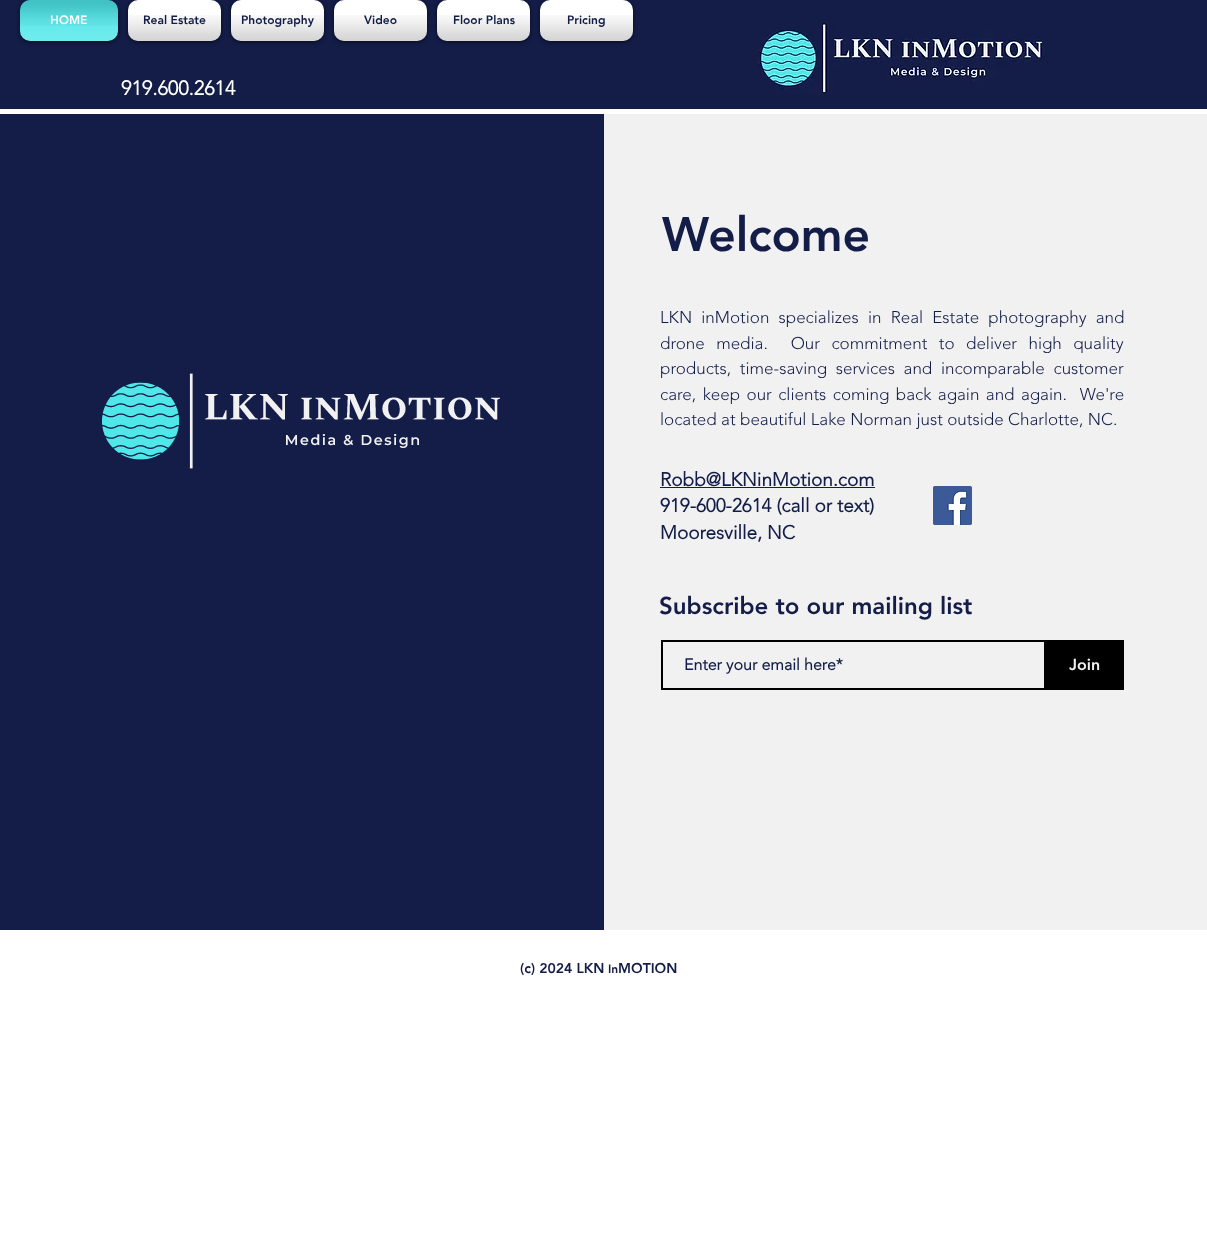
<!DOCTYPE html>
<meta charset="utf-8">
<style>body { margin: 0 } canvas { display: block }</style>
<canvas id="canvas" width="1207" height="1251"></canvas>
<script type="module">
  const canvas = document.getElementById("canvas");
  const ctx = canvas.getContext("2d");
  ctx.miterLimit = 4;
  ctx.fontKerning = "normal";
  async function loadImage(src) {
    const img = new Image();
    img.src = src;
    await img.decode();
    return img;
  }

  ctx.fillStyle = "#ffffff";
  ctx.fillRect(0, 0, 1207, 1251);
  ctx.fillStyle = "#131d47";
  ctx.fillRect(0, 0, 1207, 109);
  ctx.fillStyle = "rgba(0, 0, 0, 0.6)";
  ctx.filter = "blur(2px)";
  ctx.beginPath();
  ctx.roundRect(20, 1, 98, 41, 10);
  ctx.fill();
  ctx.filter = "none";
  ctx.fillStyle = "#4fe7e9";
  ctx.beginPath();
  ctx.roundRect(20, 0, 98, 41, 10);
  ctx.fill();
  ctx.drawImage(await loadImage("img1.png"), 20, 0, 98, 26);
  ctx.drawImage(await loadImage("img2.png"), 20, 8, 98, 33);
  ctx.font = "900 12px 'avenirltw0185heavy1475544'";
  ctx.fillStyle = "#ffffff";
  ctx.fillText("HOME", 50, 24);
  ctx.fillStyle = "rgba(0, 0, 0, 0.6)";
  ctx.filter = "blur(2px)";
  ctx.beginPath();
  ctx.roundRect(128, 1, 93, 41, 10);
  ctx.fill();
  ctx.filter = "none";
  ctx.fillStyle = "#ffffff";
  ctx.beginPath();
  ctx.roundRect(128, 0, 93, 41, 10);
  ctx.fill();
  ctx.drawImage(await loadImage("img3.png"), 128, 15, 93, 26);
  ctx.fillStyle = "#131d47";
  ctx.fillText("Real Estate", 143, 24);
  ctx.fillStyle = "rgba(0, 0, 0, 0.6)";
  ctx.filter = "blur(2px)";
  ctx.beginPath();
  ctx.roundRect(231, 1, 93, 41, 10);
  ctx.fill();
  ctx.filter = "none";
  ctx.fillStyle = "#ffffff";
  ctx.beginPath();
  ctx.roundRect(231, 0, 93, 41, 10);
  ctx.fill();
  ctx.drawImage(await loadImage("img3.png"), 231, 15, 93, 26);
  ctx.fillStyle = "#131d47";
  ctx.fillText("Photography", 241, 24);
  ctx.fillStyle = "rgba(0, 0, 0, 0.6)";
  ctx.filter = "blur(2px)";
  ctx.beginPath();
  ctx.roundRect(334, 1, 93, 41, 10);
  ctx.fill();
  ctx.filter = "none";
  ctx.fillStyle = "#ffffff";
  ctx.beginPath();
  ctx.roundRect(334, 0, 93, 41, 10);
  ctx.fill();
  ctx.drawImage(await loadImage("img3.png"), 334, 15, 93, 26);
  ctx.fillStyle = "#131d47";
  ctx.fillText("Video", 364, 24);
  ctx.fillStyle = "rgba(0, 0, 0, 0.6)";
  ctx.filter = "blur(2px)";
  ctx.beginPath();
  ctx.roundRect(437, 1, 93, 41, 10);
  ctx.fill();
  ctx.filter = "none";
  ctx.fillStyle = "#ffffff";
  ctx.beginPath();
  ctx.roundRect(437, 0, 93, 41, 10);
  ctx.fill();
  ctx.drawImage(await loadImage("img3.png"), 437, 15, 93, 26);
  ctx.fillStyle = "#131d47";
  ctx.fillText("Floor Plans", 453, 24);
  ctx.fillStyle = "rgba(0, 0, 0, 0.6)";
  ctx.filter = "blur(2px)";
  ctx.beginPath();
  ctx.roundRect(540, 1, 93, 41, 10);
  ctx.fill();
  ctx.filter = "none";
  ctx.fillStyle = "#ffffff";
  ctx.beginPath();
  ctx.roundRect(540, 0, 93, 41, 10);
  ctx.fill();
  ctx.drawImage(await loadImage("img3.png"), 540, 15, 93, 26);
  ctx.fillStyle = "#131d47";
  ctx.fillText("Pricing", 567, 24);
  ctx.font = "bold 20px 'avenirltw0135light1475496'";
  ctx.fillStyle = "#ffffff";
  ctx.fillText("919.600.2614", 121, 95);
  ctx.drawImage(await loadImage("img4.png"), 757, 22, 288, 73);
  ctx.fillStyle = "#131d47";
  ctx.fillRect(0, 114, 604, 816);
  ctx.drawImage(await loadImage("img5.png"), 102, 373, 398, 96);
  ctx.fillStyle = "#f1f1f1";
  ctx.fillRect(604, 114, 603, 816);
  ctx.font = "900 48px 'avenirltw0185heavy1475544'";
  ctx.fillStyle = "#131d47";
  ctx.fillText("Welcome", 662, 251);
  ctx.wordSpacing = "4.75px";
  ctx.font = "300 17px 'avenirltw0135light1475496'";
  ctx.fillText("LKN inMotion specializes in Real Estate photography and", 660, 323);
  ctx.wordSpacing = "7px";
  ctx.fillText("drone media.  Our commitment to deliver high quality", 660, 349);
  ctx.wordSpacing = "4.25px";
  ctx.fillText("products, time-saving services and incomparable customer", 660, 374);
  ctx.wordSpacing = "2px";
  ctx.fillText("care, keep our clients coming back again and again.  We're", 660, 400);
  ctx.wordSpacing = "0px";
  ctx.fillText("located at beautiful Lake Norman just outside Charlotte, NC.", 660, 425);
  ctx.font = "bold 19px 'avenirltw0135light1475496'";
  ctx.fillText("Robb@LKNinMotion.com", 660, 486);
  ctx.fillRect(660, 487, 215, 1);
  ctx.fillText("919-600-2614 (call or text)", 660, 512);
  ctx.fillText("Mooresville, NC", 660, 539);
  ctx.drawImage(await loadImage("img6.png"), 933, 486, 39, 39);
  ctx.font = "900 24px 'avenirltw0185heavy1475544'";
  ctx.fillText("Subscribe to our mailing list", 659, 614);
  ctx.strokeStyle = "#000000";
  ctx.lineWidth = 2;
  ctx.strokeRect(662, 641, 386, 48);
  ctx.font = "bold 16px 'avenirltw0135light1475496'";
  ctx.fillText("Enter your email here*", 684, 670);
  ctx.fillStyle = "#000000";
  ctx.fillRect(1044, 640, 80, 50);
  ctx.font = "900 16px 'avenirltw0185heavy1475544'";
  ctx.fillStyle = "#f1f1f1";
  ctx.fillText("Join", 1069, 670);
  ctx.font = "900 14px 'avenirltw0185heavy1475544'";
  ctx.fillStyle = "#131d47";
  ctx.fillText("(c) 2024 LKN", 520, 973);
  ctx.font = "900 12px 'avenirltw0185heavy1475544'";
  ctx.fillText("In", 608, 973);
  ctx.font = "900 14px 'avenirltw0185heavy1475544'";
  ctx.fillText("MOTION", 618, 973);
</script>
